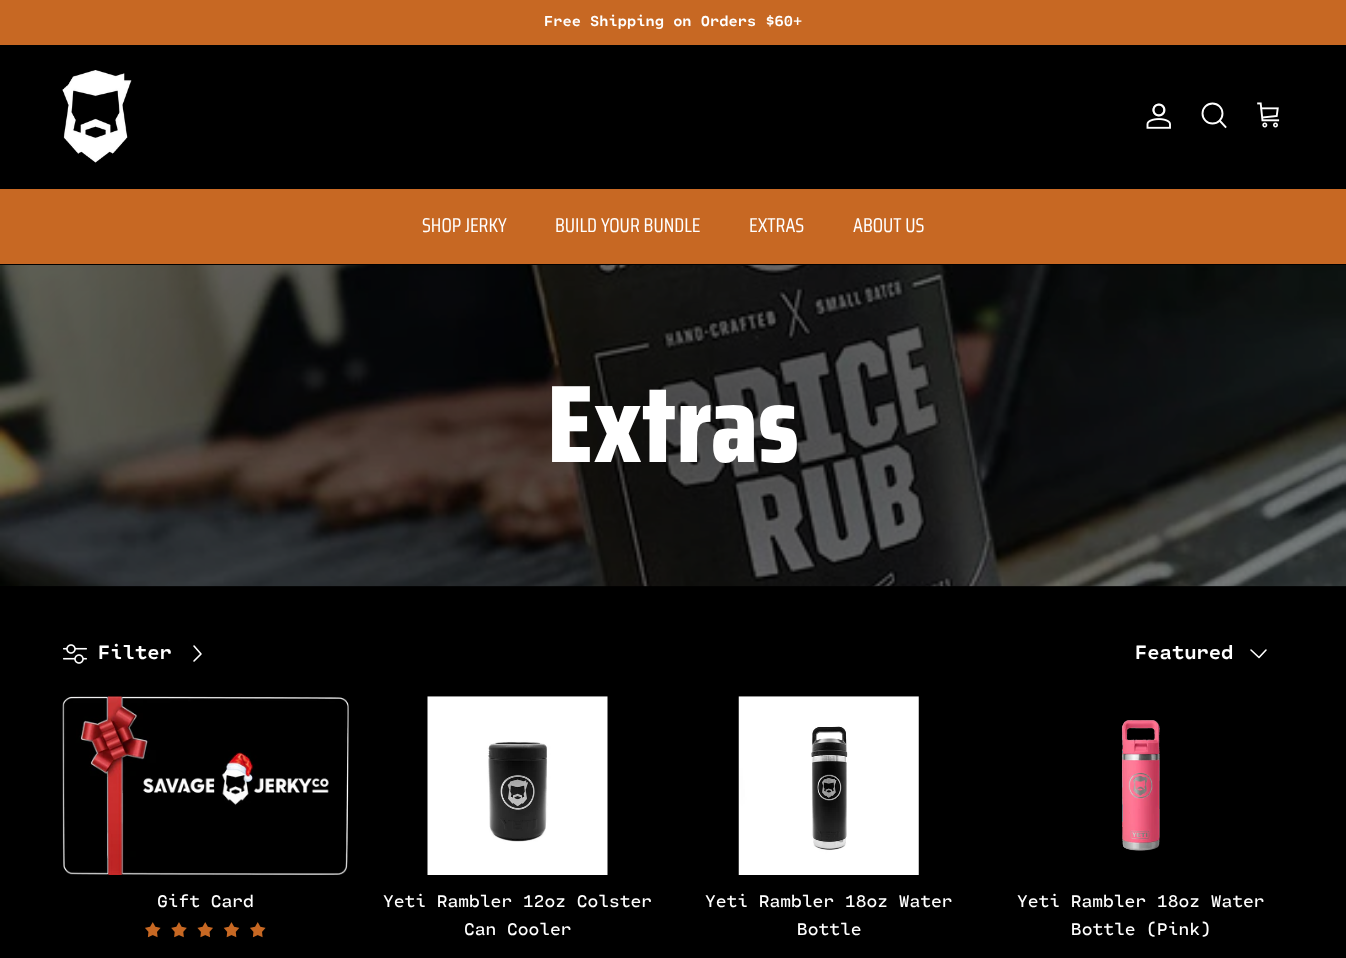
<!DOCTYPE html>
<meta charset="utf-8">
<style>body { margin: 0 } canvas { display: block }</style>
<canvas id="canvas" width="1346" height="958"></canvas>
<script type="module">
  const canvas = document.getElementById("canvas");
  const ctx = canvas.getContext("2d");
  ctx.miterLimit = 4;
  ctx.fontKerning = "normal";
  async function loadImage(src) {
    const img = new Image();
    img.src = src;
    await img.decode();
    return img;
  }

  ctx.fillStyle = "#000000";
  ctx.fillRect(0, 0, 1346, 958);
  ctx.fillStyle = "#c76823";
  ctx.fillRect(0, 0, 1346, 45);
  ctx.font = "bold 15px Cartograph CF";
  ctx.fillStyle = "#ffffff";
  ctx.fillText("Free Shipping on Orders $60+", 544, 26);
  ctx.drawImage(await loadImage("img1.png"), 62, 70, 70, 93);
  ctx.drawImage(await loadImage("img2.png"), 1146, 103, 25, 26);
  ctx.beginPath();
  ctx.arc(1212.5, 113.5, 10, 0, Math.PI * 2);
  ctx.strokeStyle = "#ffffff";
  ctx.lineWidth = 1.9;
  ctx.stroke();
  ctx.beginPath();
  ctx.moveTo(1220, 121);
  ctx.lineTo(1225.5, 127);
  ctx.lineCap = "square";
  ctx.stroke();
  ctx.drawImage(await loadImage("img3.png"), 1257, 102, 23, 26);
  ctx.fillStyle = "#c76823";
  ctx.fillRect(0, 189, 1346, 75);
  ctx.font = "20px Saira Condensed";
  ctx.fillStyle = "#ffffff";
  ctx.fillText("SHOP JERKY", 422, 232);
  ctx.fillText("BUILD YOUR BUNDLE", 555, 232);
  ctx.fillText("EXTRAS", 749, 232);
  ctx.fillText("ABOUT US", 853, 232);
  ctx.drawImage(await loadImage("img4.png"), 0, 265, 1346, 322);
  ctx.font = "800 110px Saira Condensed";
  ctx.fillText("Extras", 547, 462);
  ctx.drawImage(await loadImage("img5.png"), 63, 644, 24, 20);
  ctx.font = "bold 20px Cartograph CF";
  ctx.fillText("Filter", 98, 659);
  ctx.beginPath();
  ctx.moveTo(194, 661);
  ctx.lineTo(201, 654);
  ctx.lineTo(194, 646);
  ctx.lineWidth = 1.6;
  ctx.lineCap = "round";
  ctx.lineJoin = "round";
  ctx.stroke();
  ctx.fillText("Featured", 1135, 659);
  ctx.beginPath();
  ctx.moveTo(1251, 650);
  ctx.lineTo(1259, 657.5);
  ctx.lineTo(1266, 650);
  ctx.stroke();
  ctx.drawImage(await loadImage("img6.png"), 62, 696, 287, 179);
  ctx.font = "17.5px Cartograph CF";
  ctx.fillText("Gift Card", 157, 907);
  ctx.drawImage(await loadImage("img7.png"), 145, 922, 16, 16);
  ctx.drawImage(await loadImage("img8.png"), 171, 922, 16, 16);
  ctx.drawImage(await loadImage("img9.png"), 197, 922, 16, 16);
  ctx.drawImage(await loadImage("img10.png"), 223, 922, 17, 16);
  ctx.drawImage(await loadImage("img7.png"), 250, 922, 16, 16);
  ctx.drawImage(await loadImage("img11.png"), 427, 696, 181, 179);
  ctx.fillText("Yeti Rambler 12oz Colster", 383, 907);
  ctx.fillText("Can Cooler", 464, 935);
  ctx.drawImage(await loadImage("img12.png"), 738, 696, 181, 179);
  ctx.fillText("Yeti Rambler 18oz Water", 705, 907);
  ctx.fillText("Bottle", 797, 935);
  ctx.drawImage(await loadImage("img13.png"), 1121, 720, 39, 131);
  ctx.fillText("Yeti Rambler 18oz Water", 1017, 907);
  ctx.fillText("Bottle (Pink)", 1071, 935);
</script>
